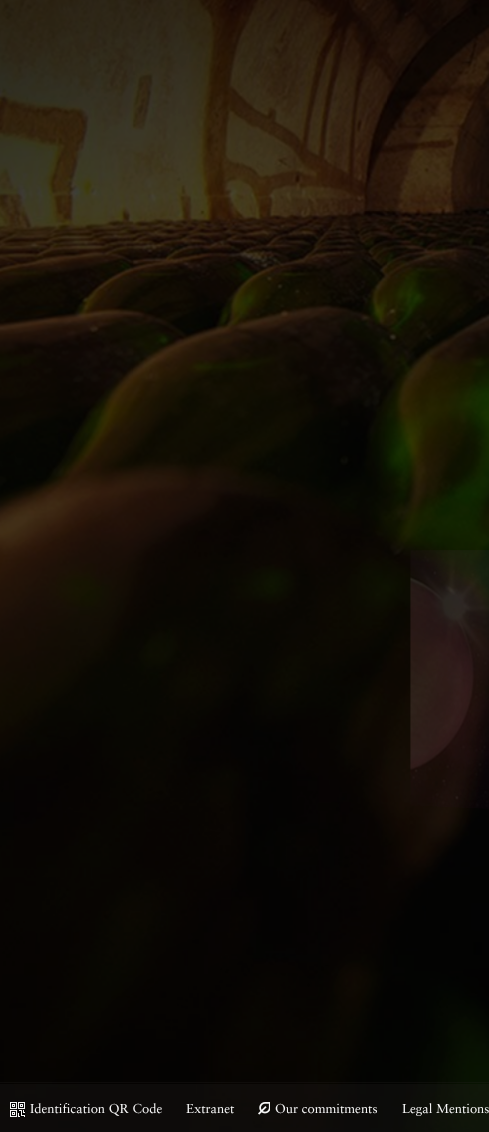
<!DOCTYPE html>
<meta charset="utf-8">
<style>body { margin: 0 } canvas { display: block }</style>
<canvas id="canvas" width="489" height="1132"></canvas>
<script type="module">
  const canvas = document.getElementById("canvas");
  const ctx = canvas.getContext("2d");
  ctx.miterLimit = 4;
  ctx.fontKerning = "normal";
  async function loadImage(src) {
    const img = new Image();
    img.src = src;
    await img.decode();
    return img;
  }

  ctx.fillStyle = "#000000";
  ctx.fillRect(0, 0, 489, 1132);
  ctx.drawImage(await loadImage("img1.png"), 0, 0, 489, 1132);
  ctx.drawImage(await loadImage("img2.png"), 410, 550, 79, 259);
  ctx.fillStyle = "rgba(42, 36, 36, 0.24)";
  ctx.fillRect(0, 1084, 489, 48);
  ctx.fillRect(0, 1082, 489, 1);
  ctx.drawImage(await loadImage("img3.png"), 10, 1102, 15, 15);
  ctx.font = "13px 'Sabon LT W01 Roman'";
  ctx.fillStyle = "#f6f6f6";
  ctx.fillText("Identification QR Code", 30, 1113);
  ctx.fillText("Extranet", 186, 1113);
  ctx.drawImage(await loadImage("img4.png"), 258, 1102, 12, 13);
  ctx.fillText("Our commitments", 275, 1113);
  ctx.fillText("Legal Mentions", 402, 1113);
</script>
